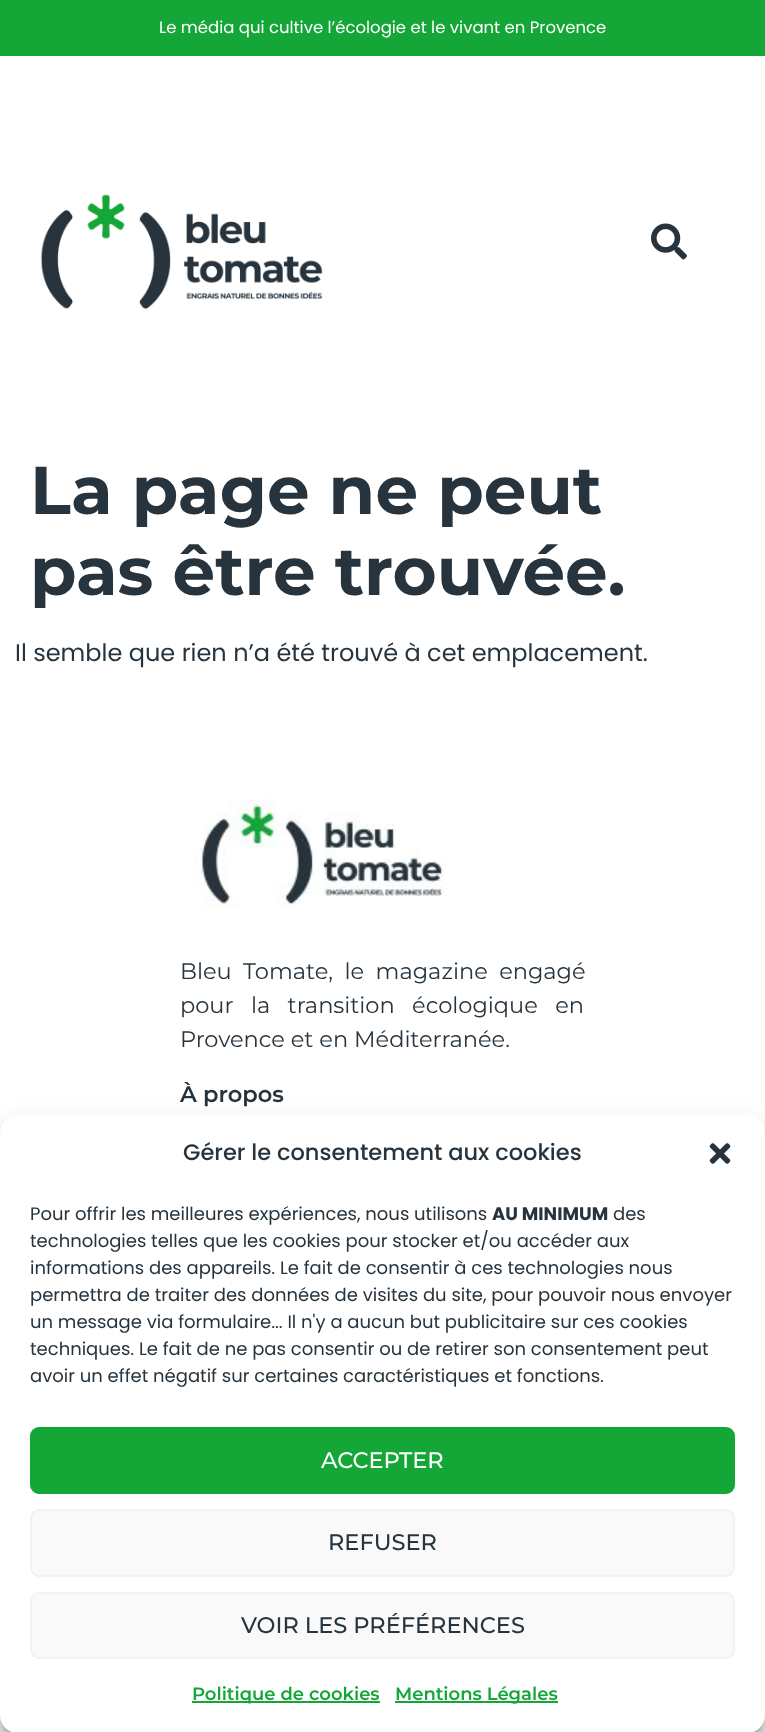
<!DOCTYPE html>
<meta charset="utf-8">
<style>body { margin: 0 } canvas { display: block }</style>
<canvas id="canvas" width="765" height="1732"></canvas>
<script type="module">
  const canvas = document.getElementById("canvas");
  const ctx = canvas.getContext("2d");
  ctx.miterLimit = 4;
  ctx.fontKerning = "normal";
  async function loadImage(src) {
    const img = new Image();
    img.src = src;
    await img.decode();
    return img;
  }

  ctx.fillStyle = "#ffffff";
  ctx.fillRect(0, 0, 765, 1732);
  ctx.fillStyle = "#14a737";
  ctx.fillRect(0, 0, 765, 56);
  ctx.font = "16.5px Poppins";
  ctx.fillStyle = "#ffffff";
  ctx.fillText("Le média qui cultive l’écologie et le vivant en Provence", 159, 33);
  ctx.drawImage(await loadImage("img1.png"), 40, 194, 283, 116);
  ctx.drawImage(await loadImage("img2.png"), 651, 223, 36, 37);
  ctx.font = "bold 67.5px Montserrat";
  ctx.fillStyle = "#27343e";
  ctx.fillText("La page ne peut", 30, 514);
  ctx.fillText("pas être trouvée.", 30, 595);
  ctx.font = "24px Poppins";
  ctx.fillText("Il semble que rien n’a été trouvé à cet emplacement.", 15, 661);
  ctx.drawImage(await loadImage("img3.png"), 194, 798, 250, 110);
  ctx.wordSpacing = "5.5px";
  ctx.font = "22.5px Montserrat";
  ctx.fillText("Bleu Tomate, le magazine engagé", 180, 979);
  ctx.wordSpacing = "11.5px";
  ctx.fillText("pour la transition écologique en", 180, 1013);
  ctx.wordSpacing = "0px";
  ctx.fillText("Provence et en Méditerranée.", 180, 1047);
  ctx.font = "600 22.5px Montserrat";
  ctx.fillText("À propos", 180, 1102);
  ctx.fillStyle = "rgba(0, 0, 0, 0.23)";
  ctx.filter = "blur(4.5px)";
  ctx.beginPath();
  ctx.roundRect(0, 1124, 765, 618, 18);
  ctx.fill();
  ctx.filter = "none";
  ctx.fillStyle = "rgba(0, 0, 0, 0.19)";
  ctx.filter = "blur(15px)";
  ctx.beginPath();
  ctx.roundRect(0, 1130, 765, 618, 18);
  ctx.fill();
  ctx.filter = "none";
  ctx.fillStyle = "#808080";
  ctx.filter = "blur(4px)";
  ctx.beginPath();
  ctx.roundRect(660, 1622, 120, 90, 3);
  ctx.fill();
  ctx.filter = "none";
  ctx.fillStyle = "#ffffff";
  ctx.beginPath();
  ctx.roundRect(0, 1115, 765, 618, 18);
  ctx.fill();
  ctx.font = "500 22.5px Poppins";
  ctx.fillStyle = "#27343e";
  ctx.fillText("Gérer le consentement aux cookies", 183, 1160);
  ctx.drawImage(await loadImage("img4.png"), 709, 1143, 22, 21);
  ctx.font = "18px Poppins";
  ctx.fillText("Pour offrir les meilleures expériences, nous utilisons", 30, 1220);
  ctx.font = "bold 18px Poppins";
  ctx.fillText("AU MINIMUM", 492, 1220);
  ctx.font = "18px Poppins";
  ctx.fillText("des", 613, 1220);
  ctx.fillText("technologies telles que les cookies pour stocker et/ou accéder aux", 30, 1247);
  ctx.fillText("informations des appareils. Le fait de consentir à ces technologies nous", 30, 1274);
  ctx.fillText("permettra de traiter des données de visites du site, pour pouvoir nous envoyer", 30, 1301);
  ctx.fillText("un message via formulaire... Il n'y a aucun but publicitaire sur ces cookies", 30, 1328);
  ctx.fillText("techniques. Le fait de ne pas consentir ou de retirer son consentement peut", 30, 1355);
  ctx.fillText("avoir un effet négatif sur certaines caractéristiques et fonctions.", 30, 1382);
  ctx.fillStyle = "#14a737";
  ctx.beginPath();
  ctx.roundRect(31, 1428, 703, 65, 8);
  ctx.fill();
  ctx.strokeStyle = "#14a737";
  ctx.lineWidth = 2;
  ctx.stroke();
  ctx.font = "500 22.5px Montserrat";
  ctx.fillStyle = "#ffffff";
  ctx.fillText("ACCEPTER", 321, 1468);
  ctx.fillStyle = "#f9f9f9";
  ctx.beginPath();
  ctx.roundRect(31, 1510, 703, 66, 8);
  ctx.fill();
  ctx.strokeStyle = "#f2f2f2";
  ctx.stroke();
  ctx.fillStyle = "#27343e";
  ctx.fillText("REFUSER", 328, 1550);
  ctx.fillStyle = "#f9f9f9";
  ctx.beginPath();
  ctx.roundRect(31, 1593, 703, 65, 8);
  ctx.fill();
  ctx.stroke();
  ctx.fillStyle = "#27343e";
  ctx.fillText("VOIR LES PRÉFÉRENCES", 241, 1633);
  ctx.fillStyle = "#14a737";
  ctx.fillRect(192, 1701, 188, 2);
  ctx.font = "600 18px Montserrat";
  ctx.fillText("Politique de cookies", 192, 1700);
  ctx.fillRect(395, 1701, 163, 2);
  ctx.fillText("Mentions Légales", 395, 1700);
</script>
